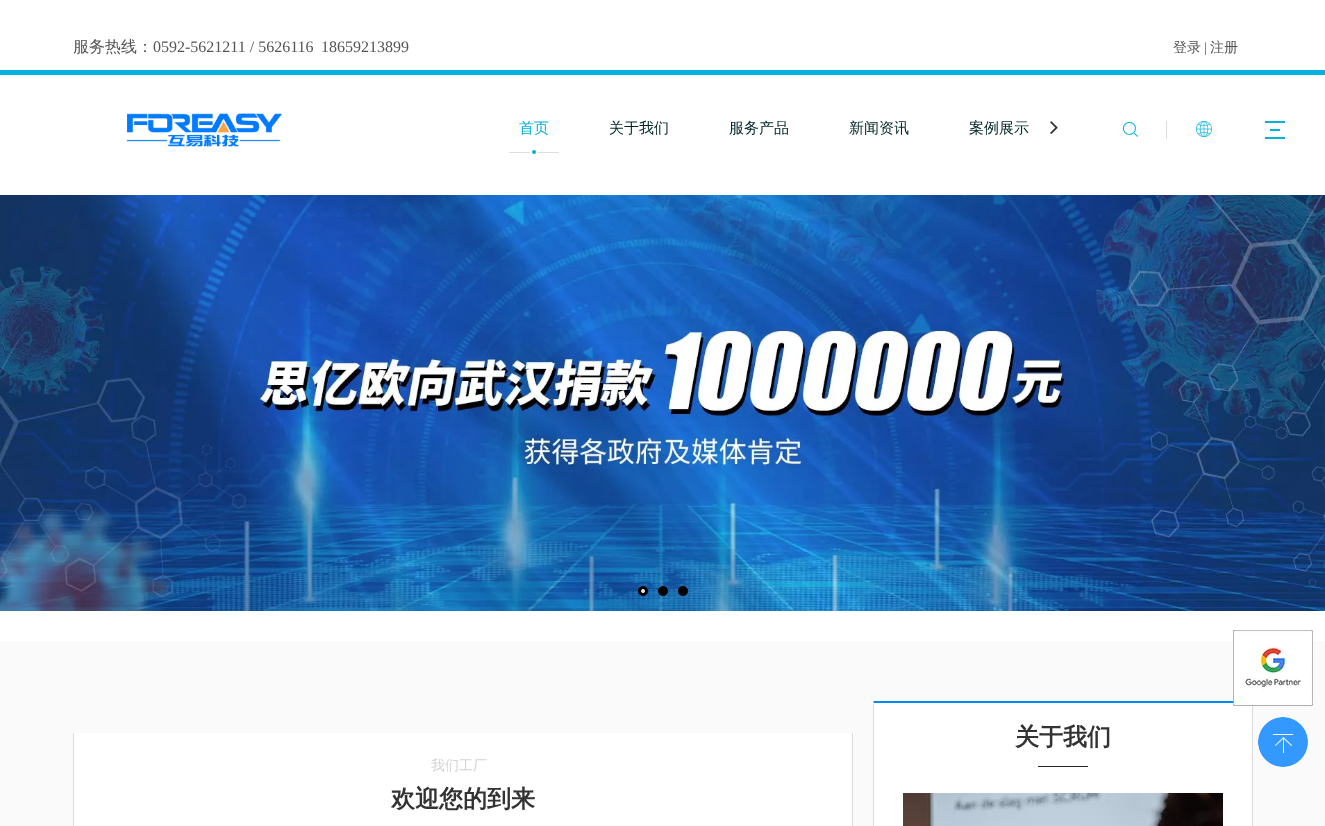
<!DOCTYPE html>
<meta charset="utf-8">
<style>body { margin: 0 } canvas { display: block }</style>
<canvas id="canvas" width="1325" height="826"></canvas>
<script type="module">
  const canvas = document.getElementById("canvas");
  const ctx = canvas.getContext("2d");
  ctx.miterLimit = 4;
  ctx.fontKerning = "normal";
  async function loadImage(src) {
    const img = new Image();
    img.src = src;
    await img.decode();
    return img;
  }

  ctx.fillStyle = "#ffffff";
  ctx.fillRect(0, 0, 1325, 826);
  ctx.font = "500 16px WenQuanYi Zen Hei";
  ctx.fillStyle = "#545454";
  ctx.fillText("服务热线：", 73, 52);
  ctx.font = "16px Liberation Serif";
  ctx.fillText("0592-5621211 / 5626116", 153, 52);
  ctx.fillText("18659213899", 321, 52);
  ctx.font = "500 14px WenQuanYi Zen Hei";
  ctx.fillText("登录", 1173, 52);
  ctx.font = "14px Liberation Serif";
  ctx.fillText("|", 1204, 52);
  ctx.font = "500 14px WenQuanYi Zen Hei";
  ctx.fillText("注册", 1210, 52);
  ctx.fillStyle = "#00b1dd";
  ctx.fillRect(0, 70, 1325, 5);
  ctx.drawImage(await loadImage("img1.png"), 126, 113, 157, 34);
  ctx.font = "500 15px WenQuanYi Zen Hei";
  ctx.fillText("首页", 519, 133);
  ctx.fillStyle = "#dddede";
  ctx.fillRect(509, 152, 21, 1);
  ctx.fillStyle = "#00b1dd";
  ctx.beginPath();
  ctx.arc(534, 152, 2, 0, Math.PI * 2);
  ctx.fill();
  ctx.fillStyle = "#dddede";
  ctx.fillRect(538, 152, 21, 1);
  ctx.fillStyle = "#002626";
  ctx.fillText("关于我们", 609, 133);
  ctx.fillText("服务产品", 729, 133);
  ctx.fillText("新闻资讯", 849, 133);
  ctx.fillText("案例展示", 969, 133);
  ctx.drawImage(await loadImage("img2.png"), 1050, 121, 8, 13);
  ctx.fillStyle = "#dddede";
  ctx.fillRect(1166, 121, 1, 18);
  ctx.drawImage(await loadImage("img3.png"), 1122, 121, 16, 16);
  ctx.drawImage(await loadImage("img4.png"), 1196, 121, 16, 16);
  ctx.fillStyle = "#00b1dd";
  ctx.fillRect(1265, 121, 20, 2);
  ctx.fillRect(1270, 129, 10, 2);
  ctx.fillRect(1265, 137, 20, 2);
  ctx.drawImage(await loadImage("img5.png"), 0, 195, 1325, 416);
  ctx.drawImage(await loadImage("img6.png"), 638, 586, 10, 10);
  ctx.drawImage(await loadImage("img7.png"), 658, 586, 10, 10);
  ctx.drawImage(await loadImage("img8.png"), 678, 586, 10, 10);
  ctx.fillStyle = "#fafafa";
  ctx.fillRect(0, 641, 1325, 185);
  ctx.fillStyle = "#ffffff";
  ctx.fillRect(874, 703, 378, 123);
  ctx.fillStyle = "#0089f5";
  ctx.beginPath();
  ctx.moveTo(873, 701);
  ctx.lineTo(1253, 701);
  ctx.lineTo(1252, 703);
  ctx.lineTo(874, 703);
  ctx.closePath();
  ctx.fill();
  ctx.fillStyle = "#dddddd";
  ctx.beginPath();
  ctx.moveTo(1253, 701);
  ctx.lineTo(1253, 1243);
  ctx.lineTo(1252, 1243);
  ctx.lineTo(1252, 703);
  ctx.closePath();
  ctx.fill();
  ctx.drawImage(await loadImage("img9.png"), 1233, 630, 80, 76);
  ctx.beginPath();
  ctx.moveTo(873, 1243);
  ctx.lineTo(873, 701);
  ctx.lineTo(874, 703);
  ctx.lineTo(874, 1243);
  ctx.closePath();
  ctx.fill();
  ctx.fillStyle = "#282828";
  ctx.fillRect(1038, 766, 50, 1);
  ctx.font = "bold 24px WenQuanYi Zen Hei";
  ctx.fillStyle = "#333333";
  ctx.fillText("关于我们", 1015, 745);
  ctx.drawImage(await loadImage("img10.png"), 903, 793, 320, 33);
  ctx.fillStyle = "#ffffff";
  ctx.fillRect(74, 733, 778, 93);
  ctx.fillStyle = "#dddddd";
  ctx.fillRect(852, 733, 1, 93);
  ctx.fillRect(73, 733, 1, 93);
  ctx.font = "500 14px WenQuanYi Zen Hei";
  ctx.fillStyle = "#d3d3d3";
  ctx.fillText("我们工厂", 431, 770);
  ctx.font = "bold 24px WenQuanYi Zen Hei";
  ctx.fillStyle = "#333333";
  ctx.fillText("欢迎您的到来", 391, 807);
  ctx.drawImage(await loadImage("img11.png"), 1258, 717, 50, 50);
</script>
